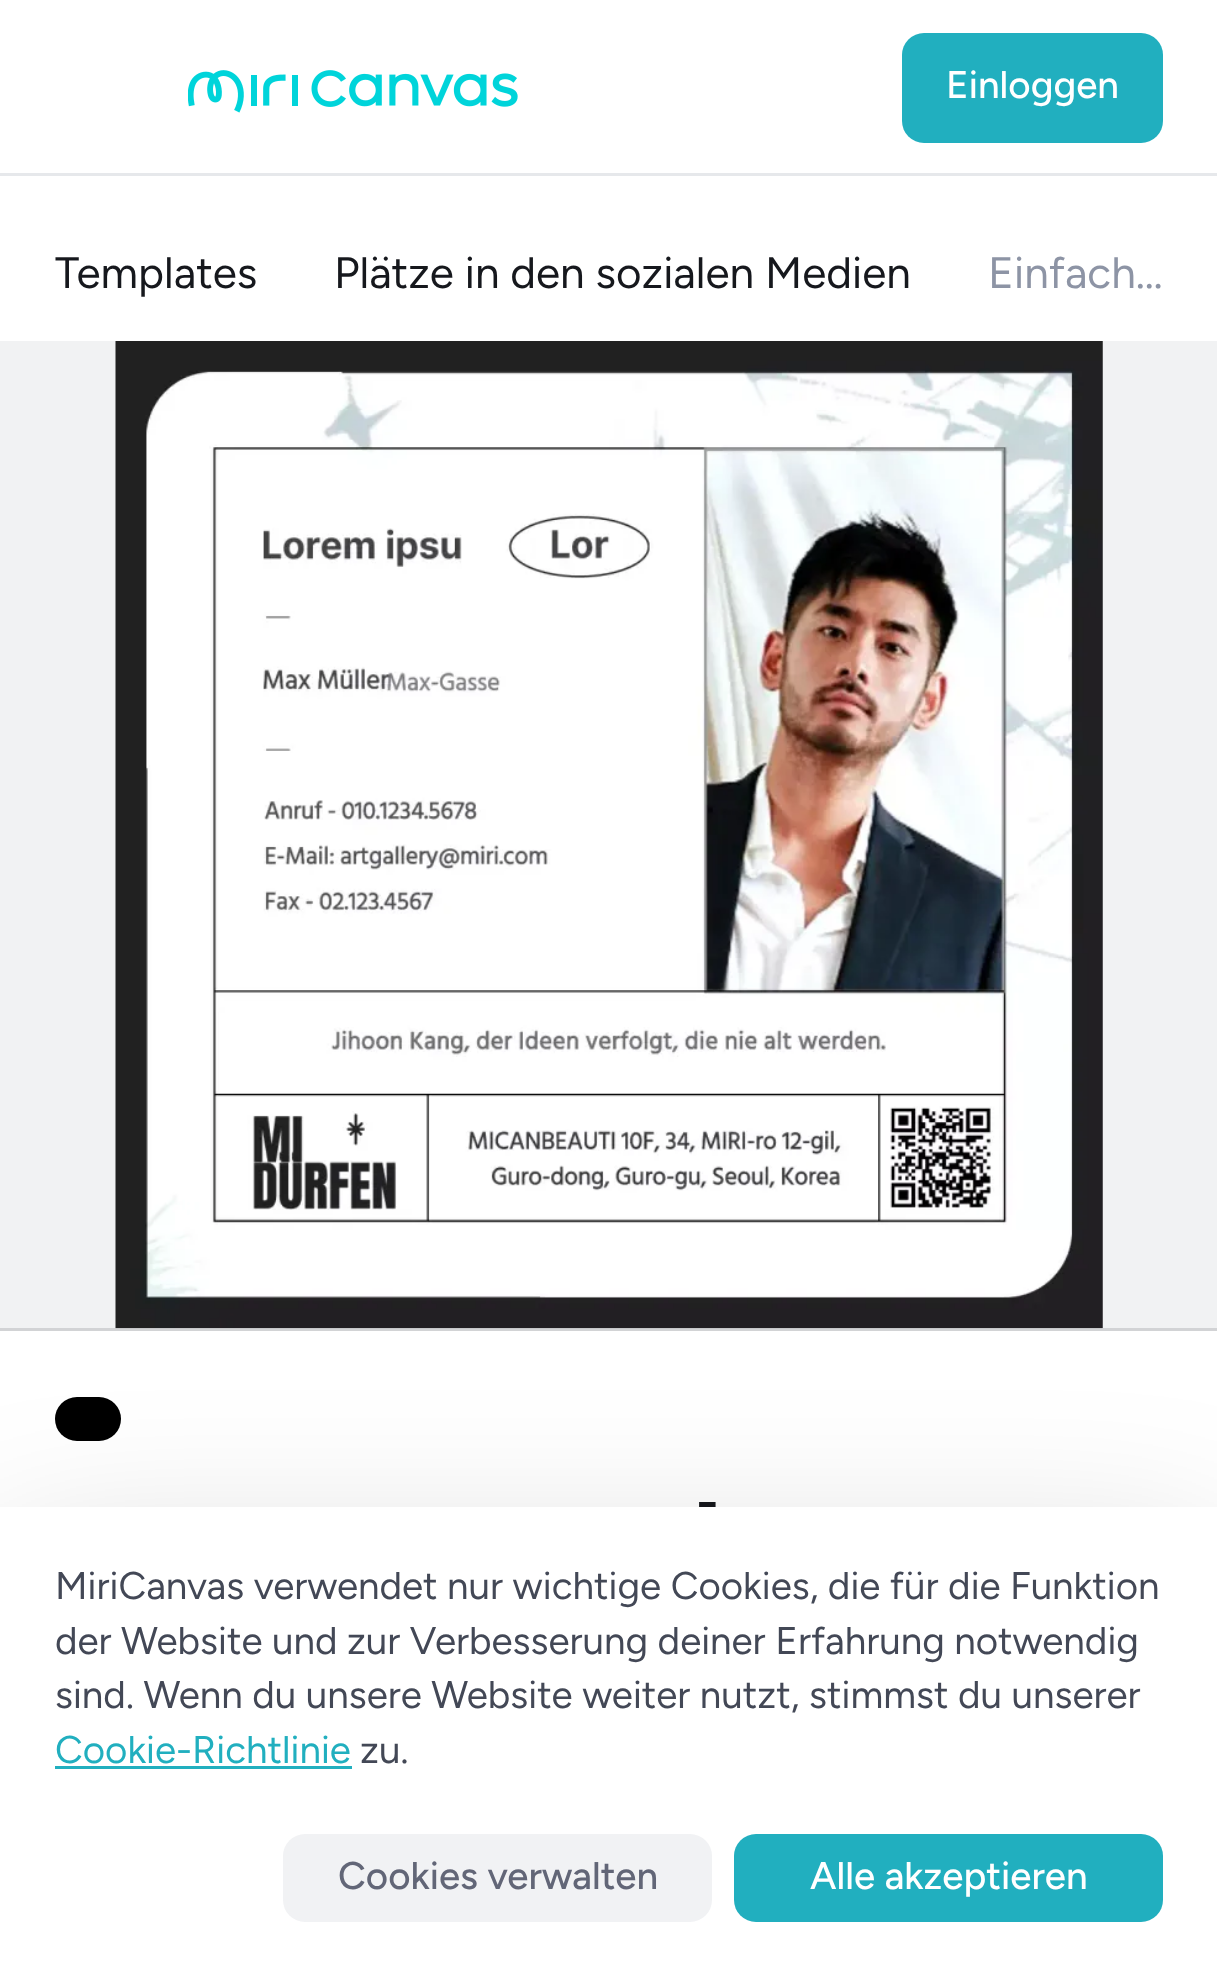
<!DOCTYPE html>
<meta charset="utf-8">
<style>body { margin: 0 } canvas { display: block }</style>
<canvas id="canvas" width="1217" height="1976"></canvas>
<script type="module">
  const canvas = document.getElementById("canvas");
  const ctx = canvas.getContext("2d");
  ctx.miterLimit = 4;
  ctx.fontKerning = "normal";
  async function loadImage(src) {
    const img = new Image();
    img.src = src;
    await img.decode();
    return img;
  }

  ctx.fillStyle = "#ffffff";
  ctx.fillRect(0, 0, 1217, 1976);
  ctx.fillStyle = "#e6e8eb";
  ctx.fillRect(0, 173, 1217, 3);
  ctx.drawImage(await loadImage("img1.png"), 188, 70, 330, 43);
  ctx.fillStyle = "#21afbf";
  ctx.beginPath();
  ctx.roundRect(902, 33, 261, 110, 22);
  ctx.fill();
  ctx.font = "500 38.5px Figtree";
  ctx.fillStyle = "#ffffff";
  ctx.fillText("Einloggen", 946, 98);
  ctx.font = "44px Figtree";
  ctx.fillStyle = "#16181d";
  ctx.fillText("Templates", 55, 288);
  ctx.fillText("Plätze in den sozialen Medien", 334, 288);
  ctx.fillStyle = "#8d94a5";
  ctx.fillText("Einfach…", 988, 288);
  ctx.fillStyle = "#f1f2f3";
  ctx.fillRect(0, 341, 1217, 987);
  ctx.fillStyle = "#d2d3d5";
  ctx.fillRect(0, 1328, 1217, 3);
  ctx.drawImage(await loadImage("img2.png"), 115, 341, 988, 988);
  ctx.fillStyle = "#000000";
  ctx.beginPath();
  ctx.roundRect(55, 1397, 66, 44, 22);
  ctx.fill();
  ctx.font = "600 55px Figtree";
  ctx.fillStyle = "#16181d";
  ctx.fillText("-", 696, 1521);
  ctx.fillStyle = "rgba(0, 0, 0, 0.2)";
  ctx.filter = "blur(88px)";
  ctx.beginPath();
  ctx.rect(0, 1573, 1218, 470);
  ctx.fill();
  ctx.filter = "none";
  ctx.fillStyle = "#ffffff";
  ctx.fillRect(0, 1507, 1217, 469);
  ctx.font = "38.5px Figtree";
  ctx.fillStyle = "#434856";
  ctx.fillText("MiriCanvas verwendet nur wichtige Cookies, die für die Funktion", 55, 1599);
  ctx.fillText("der Website und zur Verbesserung deiner Erfahrung notwendig", 55, 1654);
  ctx.fillText("sind. Wenn du unsere Website weiter nutzt, stimmst du unserer", 55, 1708);
  ctx.fillStyle = "#21afbf";
  ctx.fillText("Cookie-Richtlinie", 55, 1763);
  ctx.fillRect(55, 1766, 297, 3);
  ctx.fillStyle = "#434856";
  ctx.fillText("zu.", 360, 1763);
  ctx.fillStyle = "#f1f2f4";
  ctx.beginPath();
  ctx.roundRect(283, 1834, 429, 88, 22);
  ctx.fill();
  ctx.font = "500 38.5px Figtree";
  ctx.fillStyle = "#626677";
  ctx.fillText("Cookies verwalten", 338, 1889);
  ctx.fillStyle = "#21afbf";
  ctx.beginPath();
  ctx.roundRect(734, 1834, 429, 88, 22);
  ctx.fill();
  ctx.fillStyle = "#ffffff";
  ctx.fillText("Alle akzeptieren", 810, 1889);
</script>
